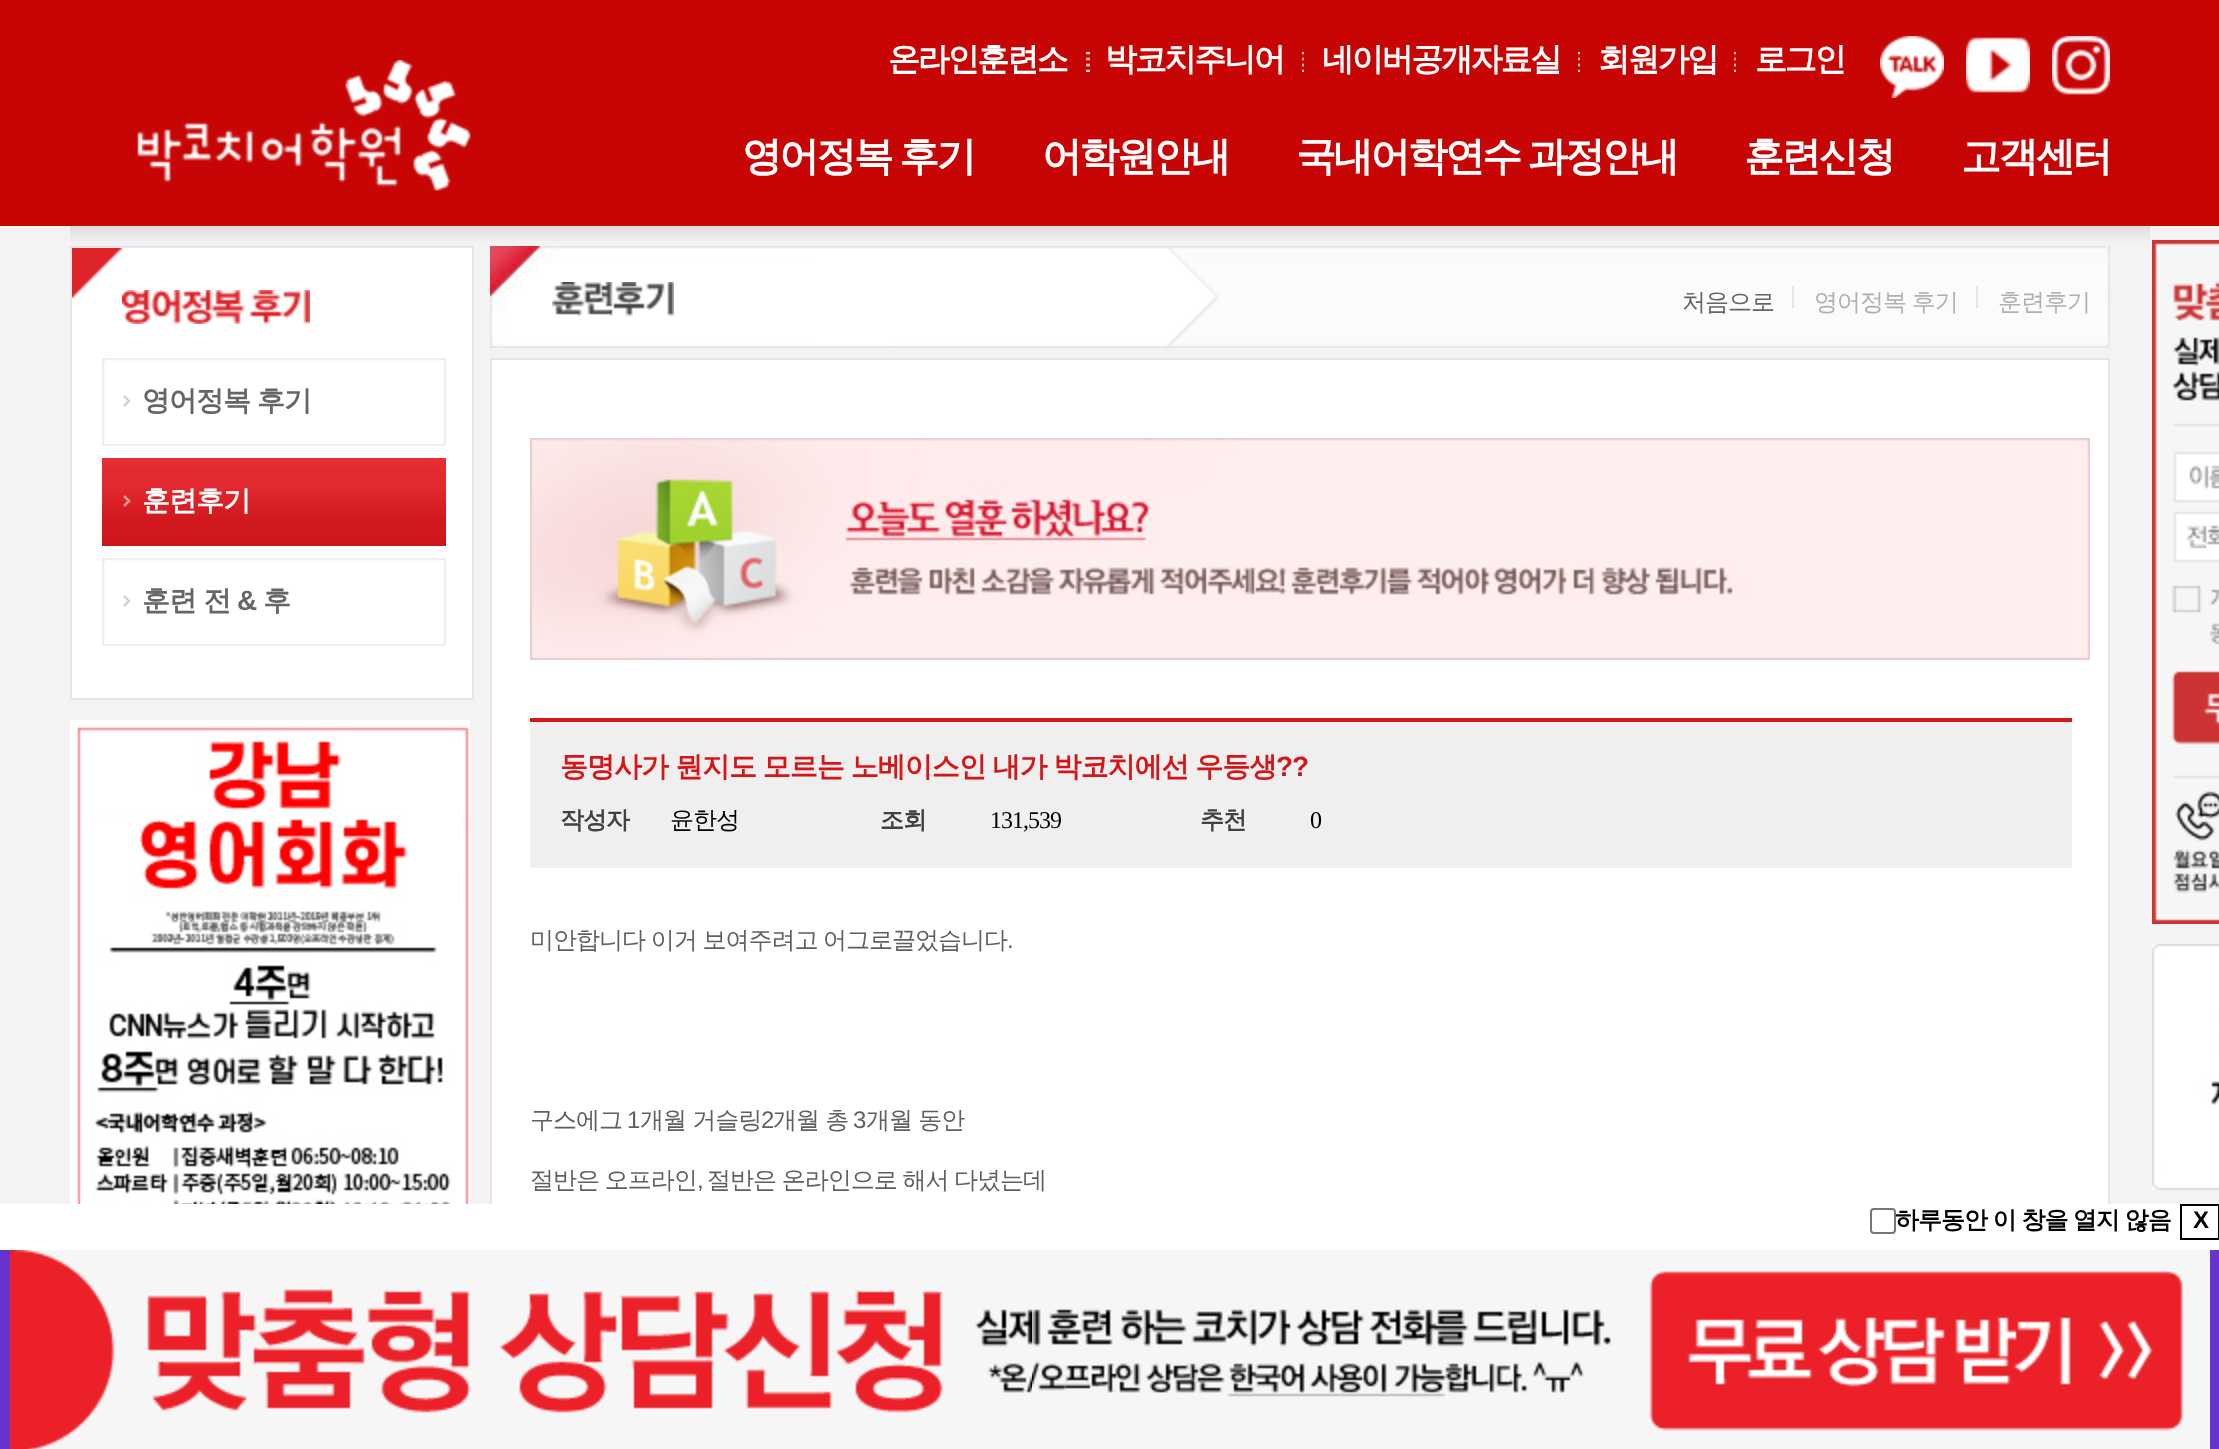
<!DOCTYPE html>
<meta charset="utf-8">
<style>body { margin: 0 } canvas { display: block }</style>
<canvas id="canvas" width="2219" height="1449"></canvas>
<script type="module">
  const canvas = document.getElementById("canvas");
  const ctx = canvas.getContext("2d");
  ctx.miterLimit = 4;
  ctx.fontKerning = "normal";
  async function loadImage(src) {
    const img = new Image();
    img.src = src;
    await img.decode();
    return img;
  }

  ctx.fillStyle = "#f3f3f3";
  ctx.fillRect(0, 0, 2219, 1449);
  ctx.fillStyle = "#c80505";
  ctx.fillRect(0, 0, 2219, 226);
  ctx.drawImage(await loadImage("img1.png"), 137, 60, 334, 131);
  ctx.letterSpacing = "-2.25px";
  ctx.font = "bold 32px WenQuanYi Zen Hei";
  ctx.fillStyle = "#ffffff";
  ctx.fillText("온라인훈련소", 888, 70);
  ctx.drawImage(await loadImage("img2.png"), 1086, 52, 4, 20);
  ctx.fillText("박코치주니어", 1105, 70);
  ctx.drawImage(await loadImage("img3.png"), 1302, 52, 2, 20);
  ctx.fillText("네이버공개자료실", 1322, 70);
  ctx.drawImage(await loadImage("img3.png"), 1578, 52, 2, 20);
  ctx.fillText("회원가입", 1598, 70);
  ctx.drawImage(await loadImage("img3.png"), 1734, 52, 2, 20);
  ctx.fillText("로그인", 1755, 70);
  ctx.drawImage(await loadImage("img4.png"), 1880, 36, 64, 62);
  ctx.drawImage(await loadImage("img5.png"), 1966, 37, 64, 56);
  ctx.drawImage(await loadImage("img6.png"), 2052, 36, 58, 59);
  ctx.letterSpacing = "-2.75px";
  ctx.wordSpacing = "-1px";
  ctx.font = "bold 40px WenQuanYi Zen Hei";
  ctx.fillText("영어정복 후기", 742, 170);
  ctx.wordSpacing = "0px";
  ctx.fillText("어학원안내", 1042, 170);
  ctx.wordSpacing = "-1px";
  ctx.fillText("국내어학연수 과정안내", 1296, 170);
  ctx.wordSpacing = "0px";
  ctx.fillText("훈련신청", 1744, 170);
  ctx.fillText("고객센터", 1961, 170);
  ctx.drawImage(await loadImage("img7.png"), 70, 226, 2080, 15);
  ctx.beginPath();
  ctx.rect(71, 247, 402, 452);
  ctx.fill();
  ctx.strokeStyle = "#e5e5e5";
  ctx.lineWidth = 2;
  ctx.stroke();
  ctx.drawImage(await loadImage("img8.png"), 72, 248, 50, 50);
  ctx.drawImage(await loadImage("img9.png"), 122, 290, 188, 34);
  ctx.drawImage(await loadImage("img10.png"), 102, 358, 344, 88);
  ctx.letterSpacing = "-1px";
  ctx.wordSpacing = "-0.5px";
  ctx.font = "bold 28px WenQuanYi Zen Hei";
  ctx.fillStyle = "#666666";
  ctx.fillText("영어정복 후기", 142, 410);
  ctx.drawImage(await loadImage("img11.png"), 102, 458, 344, 88);
  ctx.wordSpacing = "0px";
  ctx.fillStyle = "#ffffff";
  ctx.fillText("훈련후기", 142, 510);
  ctx.drawImage(await loadImage("img10.png"), 102, 558, 344, 88);
  ctx.fillStyle = "#666666";
  ctx.fillText("훈련 전", 142, 610);
  ctx.font = "bold 28px Liberation Sans";
  ctx.fillText("&", 237, 610);
  ctx.font = "bold 28px WenQuanYi Zen Hei";
  ctx.fillText("후", 263, 610);
  ctx.drawImage(await loadImage("img12.png"), 70, 720, 400, 484);
  ctx.drawImage(await loadImage("img13.png"), 490, 246, 1620, 102);
  ctx.drawImage(await loadImage("img14.png"), 552, 282, 122, 34);
  ctx.fillStyle = "#e5e5e5";
  ctx.fillRect(1792, 286, 2, 22);
  ctx.font = "500 24px WenQuanYi Zen Hei";
  ctx.fillStyle = "#666666";
  ctx.fillText("처음으로", 1682, 310);
  ctx.fillStyle = "#e5e5e5";
  ctx.fillRect(1976, 286, 2, 22);
  ctx.wordSpacing = "-0.5px";
  ctx.fillStyle = "#b0b0b0";
  ctx.fillText("영어정복 후기", 1814, 310);
  ctx.fillStyle = "#e5e5e5";
  ctx.fillRect(2108, 286, 1, 22);
  ctx.wordSpacing = "0px";
  ctx.fillStyle = "#b0b0b0";
  ctx.fillText("훈련후기", 1998, 310);
  ctx.fillStyle = "#ffffff";
  ctx.fillRect(492, 360, 1616, 844);
  ctx.strokeRect(491, 359, 1618, 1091);
  ctx.drawImage(await loadImage("img15.png"), 530, 438, 1560, 222);
  ctx.fillStyle = "#efefef";
  ctx.fillRect(530, 722, 1542, 146);
  ctx.fillStyle = "#d61516";
  ctx.fillRect(530, 718, 1542, 4);
  ctx.wordSpacing = "-0.5px";
  ctx.font = "bold 28px WenQuanYi Zen Hei";
  ctx.fillText("동명사가 뭔지도 모르는 노베이스인 내가 박코치에선 우등생", 560, 776);
  ctx.wordSpacing = "0px";
  ctx.font = "bold 28px Liberation Sans";
  ctx.fillText("??", 1276, 776);
  ctx.font = "bold 24px WenQuanYi Zen Hei";
  ctx.fillStyle = "#414141";
  ctx.fillText("작성자", 560, 828);
  ctx.font = "500 24px WenQuanYi Zen Hei";
  ctx.fillStyle = "#000000";
  ctx.fillText("윤한성", 670, 828);
  ctx.font = "bold 24px WenQuanYi Zen Hei";
  ctx.fillStyle = "#414141";
  ctx.fillText("조회", 880, 828);
  ctx.font = "24px Liberation Serif";
  ctx.fillStyle = "#000000";
  ctx.fillText("131,539", 990, 828);
  ctx.font = "bold 24px WenQuanYi Zen Hei";
  ctx.fillStyle = "#414141";
  ctx.fillText("추천", 1200, 828);
  ctx.font = "24px Liberation Serif";
  ctx.fillStyle = "#000000";
  ctx.fillText("0", 1310, 828);
  ctx.wordSpacing = "-0.5px";
  ctx.font = "500 24px WenQuanYi Zen Hei";
  ctx.fillStyle = "#606060";
  ctx.fillText("미안합니다 이거 보여주려고 어그로끌었습니다", 530, 948);
  ctx.wordSpacing = "0px";
  ctx.font = "24px Liberation Sans";
  ctx.fillText(".", 1007, 948);
  ctx.font = "500 24px WenQuanYi Zen Hei";
  ctx.fillText("구스에그", 530, 1128);
  ctx.font = "24px Liberation Sans";
  ctx.fillText("1", 627, 1128);
  ctx.font = "500 24px WenQuanYi Zen Hei";
  ctx.fillText("개월 거슬링", 640, 1128);
  ctx.font = "24px Liberation Sans";
  ctx.fillText("2", 761, 1128);
  ctx.font = "500 24px WenQuanYi Zen Hei";
  ctx.fillText("개월 총", 773, 1128);
  ctx.font = "24px Liberation Sans";
  ctx.fillText("3", 853, 1128);
  ctx.font = "500 24px WenQuanYi Zen Hei";
  ctx.fillText("개월 동안", 866, 1128);
  ctx.wordSpacing = "-0.5px";
  ctx.fillText("절반은 오프라인", 530, 1188);
  ctx.wordSpacing = "0px";
  ctx.font = "24px Liberation Sans";
  ctx.fillText(",", 697, 1188);
  ctx.wordSpacing = "-0.5px";
  ctx.font = "500 24px WenQuanYi Zen Hei";
  ctx.fillText("절반은 온라인으로 해서 다녔는데", 707, 1188);
  ctx.drawImage(await loadImage("img16.png"), 2152, 240, 67, 684);
  ctx.drawImage(await loadImage("img17.png"), 2152, 944, 67, 246);
  ctx.fillStyle = "#ffffff";
  ctx.fillRect(0, 1204, 2219, 46);
  ctx.beginPath();
  ctx.roundRect(1871, 1209, 24, 24, 3);
  ctx.strokeStyle = "#767676";
  ctx.stroke();
  ctx.font = "bold 24px WenQuanYi Zen Hei";
  ctx.fillStyle = "#000000";
  ctx.fillText("하루동안 이 창을 열지 않음", 1895, 1228);
  ctx.strokeStyle = "#000000";
  ctx.strokeRect(2181, 1205, 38, 34);
  ctx.wordSpacing = "0px";
  ctx.font = "bold 24px Liberation Sans";
  ctx.fillText("X", 2193, 1228);
  ctx.fillStyle = "#6633cc";
  ctx.fillRect(0, 1250, 2219, 199);
  ctx.drawImage(await loadImage("img18.png"), 10, 1250, 2200, 199);
</script>
